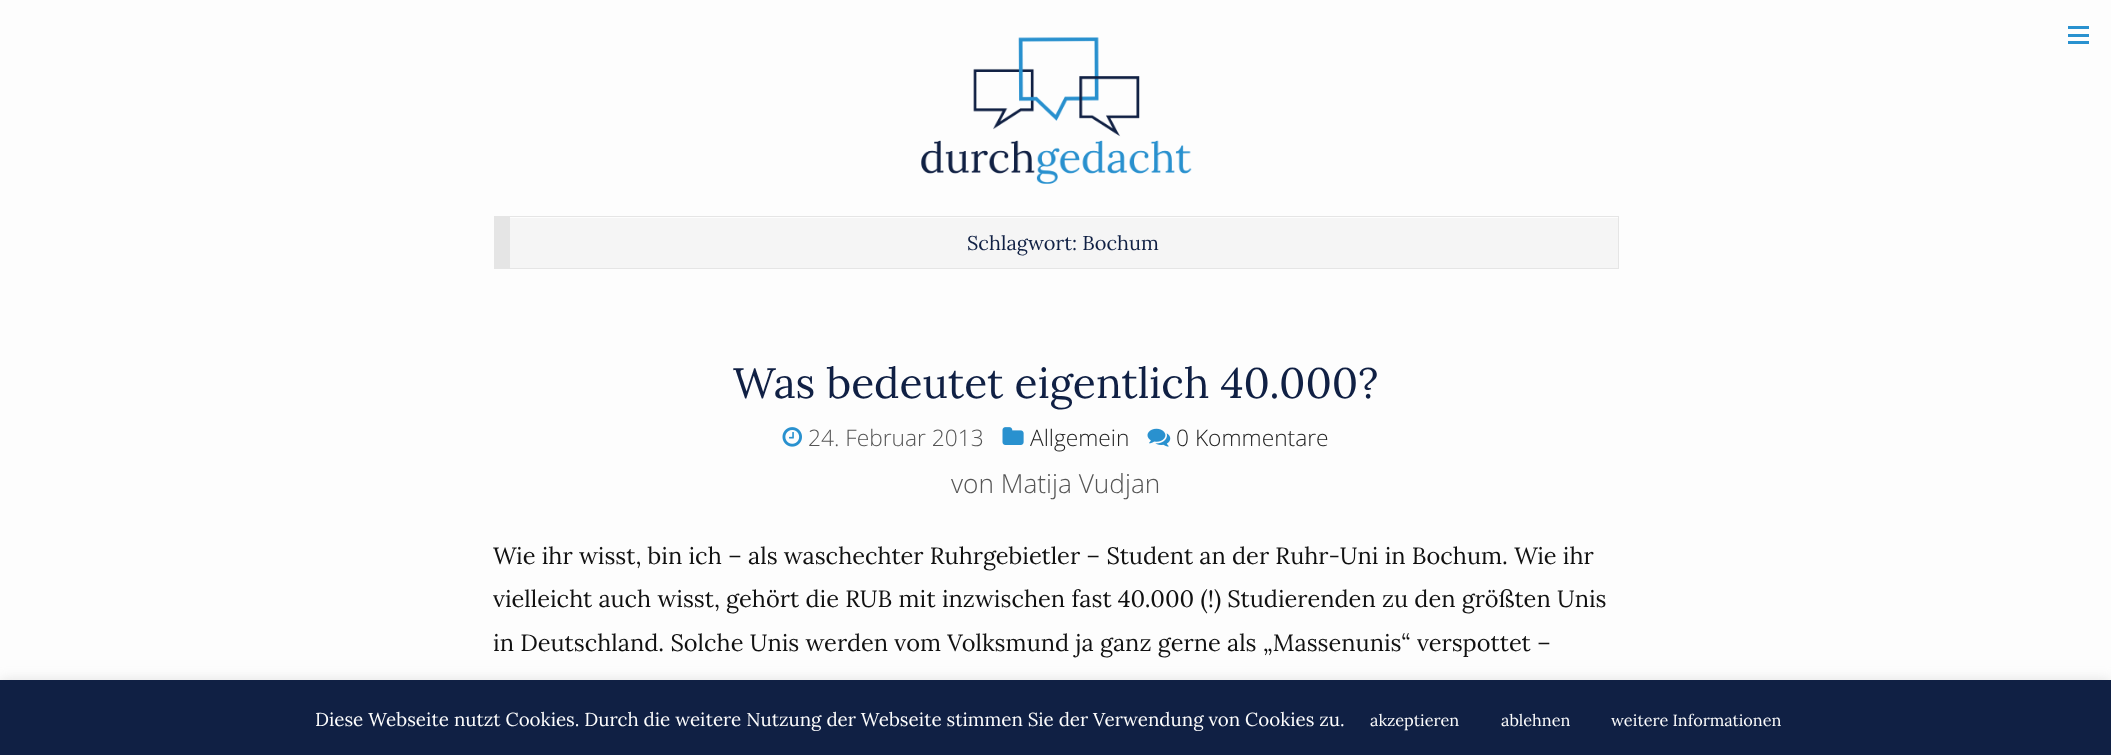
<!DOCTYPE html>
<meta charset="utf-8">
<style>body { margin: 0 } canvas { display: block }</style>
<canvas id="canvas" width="2111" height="755"></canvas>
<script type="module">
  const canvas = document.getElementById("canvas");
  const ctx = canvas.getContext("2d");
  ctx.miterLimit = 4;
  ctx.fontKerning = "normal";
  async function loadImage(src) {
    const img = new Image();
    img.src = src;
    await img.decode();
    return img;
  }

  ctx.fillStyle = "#fdfdfd";
  ctx.fillRect(0, 0, 2111, 755);
  ctx.fillStyle = "#2991cf";
  ctx.fillRect(2068, 34, 21, 3);
  ctx.fillRect(2068, 26, 21, 3);
  ctx.fillRect(2068, 41, 21, 3);
  ctx.drawImage(await loadImage("img1.png"), 921, 37, 271, 147);
  ctx.fillStyle = "#f5f5f5";
  ctx.fillRect(510, 218, 1108, 50);
  ctx.fillStyle = "#e5e5e5";
  ctx.fillRect(510, 216, 1109, 1);
  ctx.fillRect(1618, 216, 1, 53);
  ctx.fillRect(510, 268, 1109, 1);
  ctx.fillRect(494, 216, 16, 53);
  ctx.font = "20px Lora";
  ctx.fillStyle = "#102044";
  ctx.fillText("Schlagwort: Bochum", 967, 250);
  ctx.font = "42.5px Lora";
  ctx.fillText("Was bedeutet eigentlich 40.000?", 733, 398);
  ctx.drawImage(await loadImage("img2.png"), 782, 427, 20, 20);
  ctx.font = "300 22.75px Open Sans";
  ctx.fillStyle = "#555555";
  ctx.fillText("24. Februar 2013", 808, 446);
  ctx.drawImage(await loadImage("img3.png"), 1002, 427, 22, 18);
  ctx.fillStyle = "#222222";
  ctx.fillText("Allgemein", 1030, 446);
  ctx.drawImage(await loadImage("img4.png"), 1147, 428, 24, 19);
  ctx.fillText("0 Kommentare", 1176, 446);
  ctx.font = "300 26.25px Open Sans";
  ctx.fillStyle = "#555555";
  ctx.fillText("von Matija Vudjan", 951, 493);
  ctx.font = "23.6px Lora";
  ctx.fillStyle = "#111111";
  ctx.fillText("Wie ihr wisst, bin ich – als waschechter Ruhrgebietler – Student an der Ruhr-Uni in Bochum. Wie ihr", 493, 564);
  ctx.fillText("vielleicht auch wisst, gehört die RUB mit inzwischen fast 40.000 (!) Studierenden zu den größten Unis", 493, 607);
  ctx.fillText("in Deutschland. Solche Unis werden vom Volksmund ja ganz gerne als „Massenunis“ verspottet –", 493, 651);
  ctx.fillStyle = "rgba(172, 171, 171, 0.3)";
  ctx.filter = "blur(6px)";
  ctx.beginPath();
  ctx.rect(0, 679, 2111, 75);
  ctx.fill();
  ctx.filter = "none";
  ctx.fillStyle = "#102044";
  ctx.fillRect(0, 680, 2111, 75);
  ctx.font = "18.75px Lora";
  ctx.fillStyle = "#fdfdfd";
  ctx.fillText("Diese Webseite nutzt Cookies. Durch die weitere Nutzung der Webseite stimmen Sie der Verwendung von Cookies zu.", 315, 726);
  ctx.font = "16.25px Lora";
  ctx.fillText("akzeptieren", 1370, 726);
  ctx.fillText("ablehnen", 1501, 726);
  ctx.fillText("weitere Informationen", 1611, 726);
</script>
